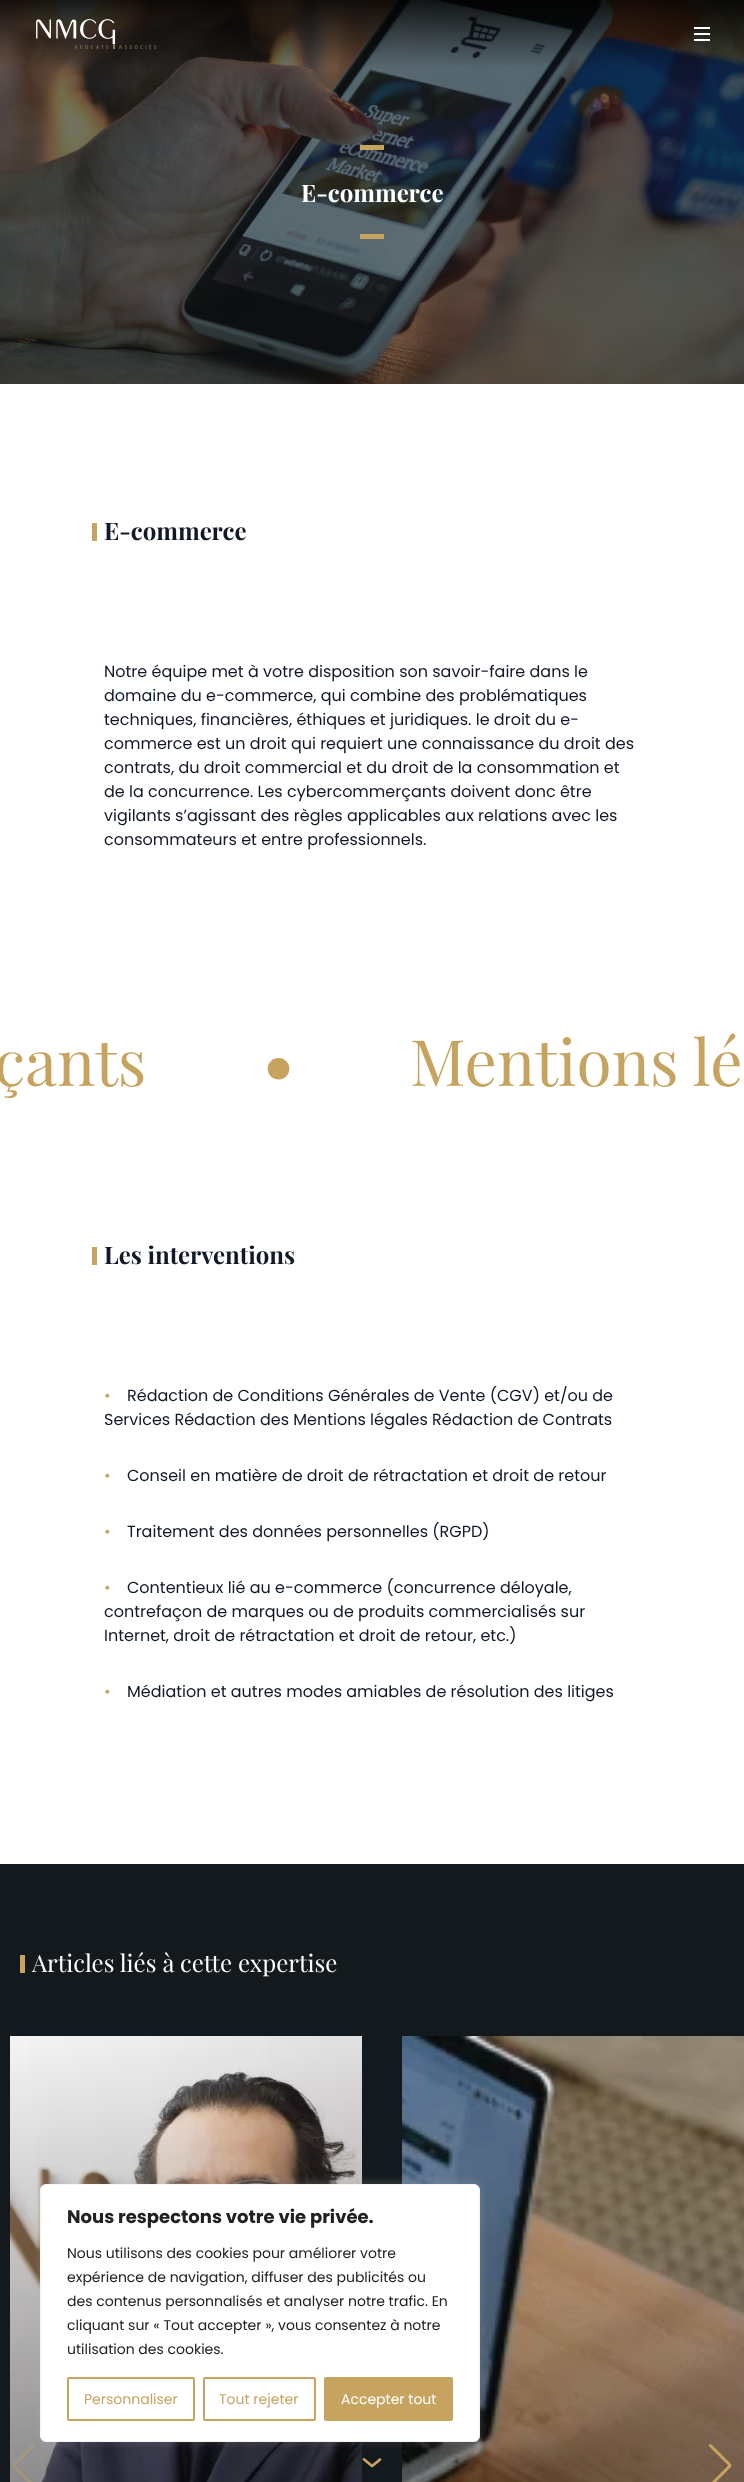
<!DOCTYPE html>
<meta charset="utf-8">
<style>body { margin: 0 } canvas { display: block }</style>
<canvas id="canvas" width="744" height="2482"></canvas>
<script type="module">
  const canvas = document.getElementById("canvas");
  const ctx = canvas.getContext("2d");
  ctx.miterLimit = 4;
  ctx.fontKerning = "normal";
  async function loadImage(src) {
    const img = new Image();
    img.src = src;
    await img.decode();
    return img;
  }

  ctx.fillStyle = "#ffffff";
  ctx.fillRect(0, 0, 744, 2482);
  ctx.drawImage(await loadImage("img2.png"), 0, 0, 744, 384);
  ctx.drawImage(await loadImage("img1.png"), 36, 19, 121, 31);
  ctx.fillRect(694, 27, 16, 2);
  ctx.fillRect(694, 33, 16, 2);
  ctx.fillRect(694, 39, 16, 2);
  ctx.fillStyle = "#c6a460";
  ctx.fillRect(360, 145, 24, 5);
  ctx.font = "bold 24px Playfair Display";
  ctx.fillStyle = "#ffffff";
  ctx.fillText("E-commerce", 301, 202);
  ctx.fillStyle = "#c6a460";
  ctx.fillRect(360, 234, 24, 5);
  ctx.fillRect(92, 523, 5, 18);
  ctx.fillStyle = "#111827";
  ctx.fillText("E-commerce", 104, 540);
  ctx.font = "16px Poppins";
  ctx.fillText("Notre équipe met à votre disposition son savoir-faire dans le", 104, 677);
  ctx.fillText("domaine du e-commerce, qui combine des problématiques", 104, 701);
  ctx.fillText("techniques, financières, éthiques et juridiques. le droit du e-", 104, 725);
  ctx.fillText("commerce est un droit qui requiert une connaissance du droit des", 104, 749);
  ctx.fillText("contrats, du droit commercial et du droit de la consommation et", 104, 773);
  ctx.fillText("de la concurrence. Les cybercommerçants doivent donc être", 104, 797);
  ctx.fillText("vigilants s’agissant des règles applicables aux relations avec les", 104, 821);
  ctx.fillText("consommateurs et entre professionnels.", 104, 845);
  ctx.font = "64px Playfair Display";
  ctx.fillStyle = "#c6a460";
  ctx.fillText("çants", -6, 1086);
  ctx.font = "bold 64px Playfair Display";
  ctx.fillText("•", 263, 1086);
  ctx.font = "64px Playfair Display";
  ctx.fillText("Mentions lé", 410, 1086);
  ctx.fillRect(92, 1247, 5, 18);
  ctx.font = "bold 24px Playfair Display";
  ctx.fillStyle = "#111827";
  ctx.fillText("Les interventions", 104, 1264);
  ctx.font = "16px Poppins";
  ctx.fillStyle = "#c6a460";
  ctx.fillText("•", 104, 1401);
  ctx.fillStyle = "#111827";
  ctx.fillText("Rédaction de Conditions Générales de Vente (CGV) et/ou de", 127, 1401);
  ctx.fillText("Services Rédaction des Mentions légales Rédaction de Contrats", 104, 1425);
  ctx.fillStyle = "#c6a460";
  ctx.fillText("•", 104, 1481);
  ctx.fillStyle = "#111827";
  ctx.fillText("Conseil en matière de droit de rétractation et droit de retour", 127, 1481);
  ctx.fillStyle = "#c6a460";
  ctx.fillText("•", 104, 1537);
  ctx.fillStyle = "#111827";
  ctx.fillText("Traitement des données personnelles (RGPD)", 127, 1537);
  ctx.fillStyle = "#c6a460";
  ctx.fillText("•", 104, 1593);
  ctx.fillStyle = "#111827";
  ctx.fillText("Contentieux lié au e-commerce (concurrence déloyale,", 127, 1593);
  ctx.fillText("contrefaçon de marques ou de produits commercialisés sur", 104, 1617);
  ctx.fillText("Internet, droit de rétractation et droit de retour, etc.)", 104, 1641);
  ctx.fillStyle = "#c6a460";
  ctx.fillText("•", 104, 1697);
  ctx.fillStyle = "#111827";
  ctx.fillText("Médiation et autres modes amiables de résolution des litiges", 127, 1697);
  ctx.fillStyle = "#13191c";
  ctx.fillRect(0, 1864, 744, 618);
  ctx.fillStyle = "#c6a460";
  ctx.fillRect(20, 1955, 5, 18);
  ctx.font = "24px Playfair Display";
  ctx.fillStyle = "#ffffff";
  ctx.fillText("Articles liés à cette expertise", 32, 1972);
  ctx.drawImage(await loadImage("img3.png"), 10, 2036, 352, 446);
  ctx.drawImage(await loadImage("img4.png"), 402, 2036, 342, 446);
  ctx.drawImage(await loadImage("img5.png"), 12, 2444, 23, 38);
  ctx.drawImage(await loadImage("img6.png"), 708, 2444, 24, 38);
  ctx.fillStyle = "rgba(172, 171, 171, 0.3)";
  ctx.filter = "blur(5px)";
  ctx.beginPath();
  ctx.roundRect(40, 2183, 440, 258, 6);
  ctx.fill();
  ctx.filter = "none";
  ctx.fillStyle = "#ffffff";
  ctx.beginPath();
  ctx.roundRect(40.5, 2184.5, 439, 257, 5.5);
  ctx.fill();
  ctx.strokeStyle = "#f4f4f4";
  ctx.stroke();
  ctx.font = "bold 18px Poppins";
  ctx.fillStyle = "#212121";
  ctx.fillText("Nous respectons votre vie privée.", 67, 2223);
  ctx.font = "14px Poppins";
  ctx.fillText("Nous utilisons des cookies pour améliorer votre", 67, 2258);
  ctx.fillText("expérience de navigation, diffuser des publicités ou", 67, 2282);
  ctx.fillText("des contenus personnalisés et analyser notre trafic. En", 67, 2306);
  ctx.fillText("cliquant sur « Tout accepter », vous consentez à notre", 67, 2330);
  ctx.fillText("utilisation des cookies.", 67, 2354);
  ctx.beginPath();
  ctx.roundRect(68, 2378, 126, 42, 1);
  ctx.strokeStyle = "#c6a460";
  ctx.lineWidth = 2;
  ctx.stroke();
  ctx.fillStyle = "#c6a460";
  ctx.fillText("Personnaliser", 84, 2404);
  ctx.beginPath();
  ctx.roundRect(204, 2378, 111, 42, 1);
  ctx.stroke();
  ctx.fillText("Tout rejeter", 219, 2404);
  ctx.beginPath();
  ctx.roundRect(325, 2378, 127, 42, 1);
  ctx.fill();
  ctx.stroke();
  ctx.fillStyle = "#ffffff";
  ctx.fillText("Accepter tout", 341, 2404);
  ctx.drawImage(await loadImage("img7.png"), 362, 2458, 20, 10);
</script>
